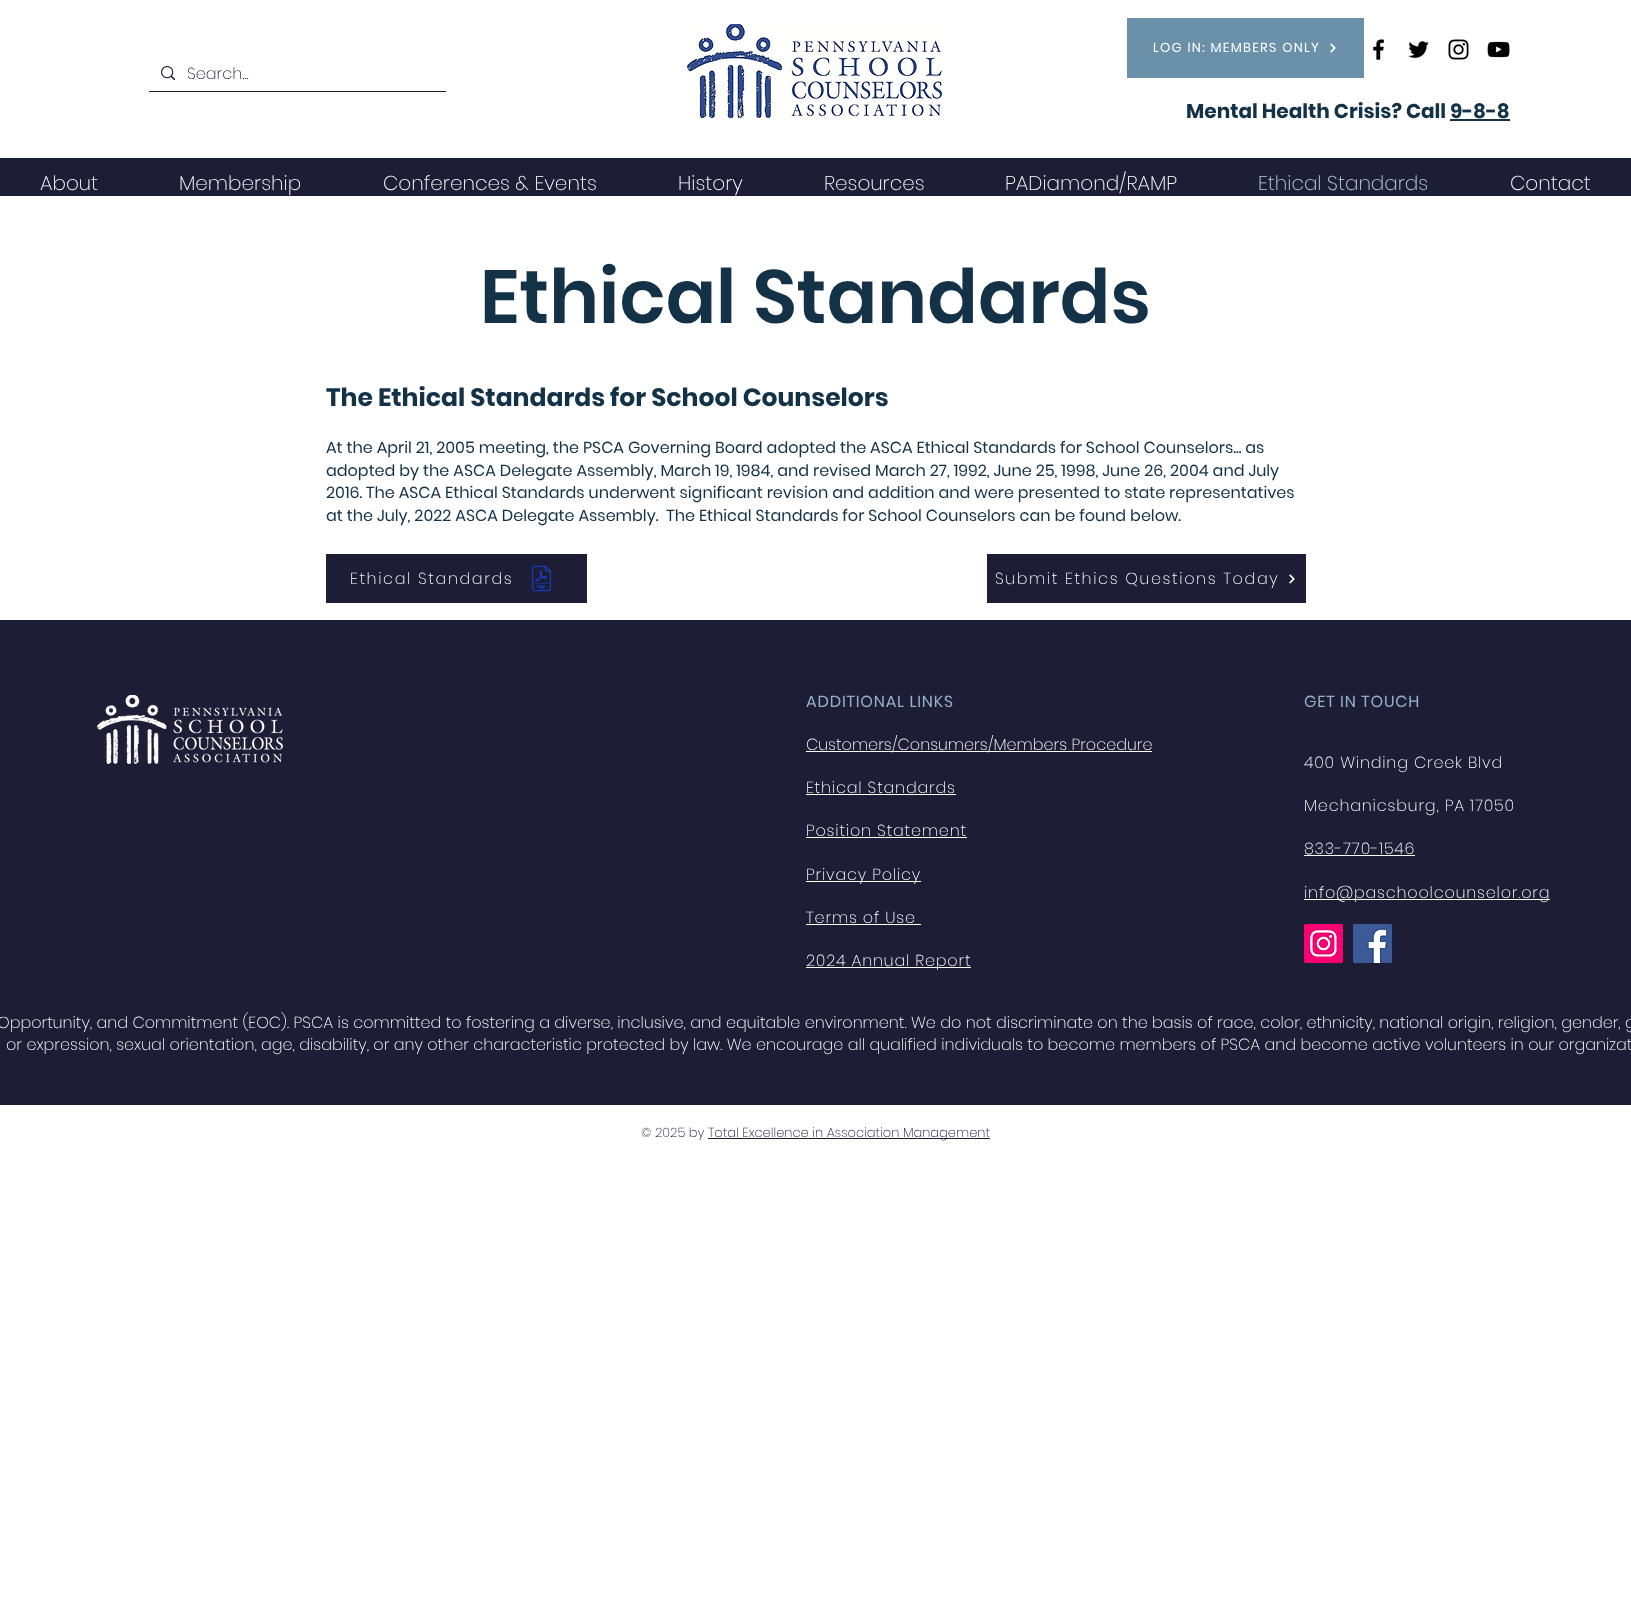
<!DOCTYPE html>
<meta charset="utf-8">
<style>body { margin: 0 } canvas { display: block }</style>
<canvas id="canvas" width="1631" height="1619"></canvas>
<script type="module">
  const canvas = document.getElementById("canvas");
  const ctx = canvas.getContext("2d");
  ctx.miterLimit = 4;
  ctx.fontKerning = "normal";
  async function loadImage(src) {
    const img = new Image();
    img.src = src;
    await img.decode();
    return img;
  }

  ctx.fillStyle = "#ffffff";
  ctx.fillRect(0, 0, 1631, 1619);
  ctx.drawImage(await loadImage("img1.png"), 687, 24, 255, 94);
  ctx.fillStyle = "#1d1d36";
  ctx.fillRect(149, 91, 297, 1);
  ctx.drawImage(await loadImage("img2.png"), 161, 66, 14, 14);
  ctx.font = "200 16px Poppins";
  ctx.fillText("Search...", 187, 79);
  ctx.fillStyle = "#6b90aa";
  ctx.fillRect(1127, 18, 237, 60);
  ctx.letterSpacing = "1.3px";
  ctx.font = "13px Poppins";
  ctx.fillStyle = "#ffffff";
  ctx.fillText("LOG IN: MEMBERS ONLY", 1153, 52);
  ctx.drawImage(await loadImage("img3.png"), 1330, 43, 6, 10);
  ctx.drawImage(await loadImage("img4.png"), 1373, 39, 11, 21);
  ctx.drawImage(await loadImage("img5.png"), 1408, 41, 21, 17);
  ctx.drawImage(await loadImage("img6.png"), 1448, 39, 21, 21);
  ctx.drawImage(await loadImage("img7.png"), 1487, 41, 23, 17);
  ctx.letterSpacing = "0px";
  ctx.font = "bold 20px Poppins";
  ctx.fillStyle = "#133147";
  ctx.fillText("Mental Health Crisis? Call 9-8-8", 1186, 118);
  ctx.fillRect(1450, 119, 60, 2);
  ctx.fillStyle = "#1d1d36";
  ctx.fillRect(0, 158, 1631, 38);
  ctx.font = "200 20px Poppins";
  ctx.fillStyle = "#ffffff";
  ctx.fillText("About", 40, 190);
  ctx.fillText("Membership", 179, 190);
  ctx.fillText("Conferences & Events", 383, 190);
  ctx.fillText("History", 678, 190);
  ctx.fillText("Resources", 824, 190);
  ctx.fillText("PADiamond/RAMP", 1005, 190);
  ctx.fillStyle = "#b9d1e3";
  ctx.fillText("Ethical Standards", 1258, 190);
  ctx.fillStyle = "#ffffff";
  ctx.fillText("Contact", 1510, 190);
  ctx.font = "600 75px Poppins";
  ctx.fillStyle = "#133147";
  ctx.fillText("Ethical Standards", 480, 323);
  ctx.font = "bold 25px Poppins";
  ctx.fillText("The Ethical Standards for School Counselors", 326, 406);
  ctx.font = "16px Poppins";
  ctx.fillText("At the April 21, 2005 meeting, the PSCA Governing Board adopted the ASCA Ethical Standards for School Counselors... as", 326, 453);
  ctx.fillText("adopted by the ASCA Delegate Assembly, March 19, 1984, and revised March 27, 1992, June 25, 1998, June 26, 2004 and July", 326, 476);
  ctx.fillText("2016. The ASCA Ethical Standards underwent significant revision and addition and were presented to state representatives", 326, 498);
  ctx.fillText("at the July, 2022 ASCA Delegate Assembly.  The Ethical Standards for School Counselors can be found below.", 326, 521);
  ctx.fillStyle = "#1d1d36";
  ctx.fillRect(326, 554, 261, 49);
  ctx.letterSpacing = "1.6px";
  ctx.font = "200 16px Poppins";
  ctx.fillStyle = "#ffffff";
  ctx.fillText("Ethical Standards", 350, 584);
  ctx.drawImage(await loadImage("img8.png"), 532, 565, 19, 27);
  ctx.fillStyle = "#1d1d36";
  ctx.fillRect(987, 554, 319, 49);
  ctx.fillStyle = "#ffffff";
  ctx.fillText("Submit Ethics Questions Today", 995, 584);
  ctx.drawImage(await loadImage("img9.png"), 1289, 574, 6, 10);
  ctx.fillStyle = "#1d1d36";
  ctx.fillRect(0, 620, 1631, 485);
  ctx.drawImage(await loadImage("img10.png"), 97, 695, 186, 69);
  ctx.letterSpacing = "0.8px";
  ctx.font = "16px Poppins";
  ctx.fillStyle = "#96b2c6";
  ctx.fillText("ADDITIONAL LINKS", 806, 707);
  ctx.fillStyle = "#ffffff";
  ctx.fillRect(806, 751, 346, 1);
  ctx.letterSpacing = "0px";
  ctx.font = "200 16px Poppins";
  ctx.fillText("Customers/Consumers/Members Procedure", 806, 750);
  ctx.letterSpacing = "0.8px";
  ctx.fillText("Ethical Standards", 806, 793);
  ctx.fillRect(806, 794, 150, 1);
  ctx.fillText("Position Statement", 806, 836);
  ctx.fillRect(806, 837, 161, 1);
  ctx.fillRect(806, 881, 115, 1);
  ctx.fillText("Privacy Policy", 806, 880);
  ctx.fillText("Terms of Use", 806, 923);
  ctx.fillRect(806, 924, 115, 1);
  ctx.fillRect(806, 967, 165, 1);
  ctx.fillText("2024 Annual Report", 806, 966);
  ctx.font = "16px Poppins";
  ctx.fillStyle = "#96b2c6";
  ctx.fillText("GET IN TOUCH", 1304, 707);
  ctx.font = "200 16px Poppins";
  ctx.fillStyle = "#ffffff";
  ctx.fillText("400 Winding Creek Blvd", 1304, 768);
  ctx.fillText("Mechanicsburg, PA 17050", 1304, 811);
  ctx.fillText("833-770-1546", 1304, 854);
  ctx.fillRect(1304, 855, 111, 1);
  ctx.fillRect(1304, 899, 246, 1);
  ctx.fillText("info@paschoolcounselor.org", 1304, 898);
  ctx.drawImage(await loadImage("img11.png"), 1304, 924, 39, 39);
  ctx.drawImage(await loadImage("img12.png"), 1353, 924, 39, 39);
  ctx.letterSpacing = "0px";
  ctx.fillText("Opportunity, and Commitment (EOC). PSCA is committed to fostering a diverse, inclusive, and equitable environment. We do not discriminate on the basis of race, color, ethnicity, national origin, religion, gender, g", -3, 1028);
  ctx.fillText("or expression, sexual orientation, age, disability, or any other characteristic protected by law. We encourage all qualified individuals to become members of PSCA and become active volunteers in our organizat", 6, 1050);
  ctx.font = "200 13px Poppins";
  ctx.fillStyle = "#1d1d36";
  ctx.fillText("© 2025 by", 641, 1137);
  ctx.fillRect(708, 1138, 282, 1);
  ctx.fillText("Total Excellence in Association Management", 708, 1137);
</script>
